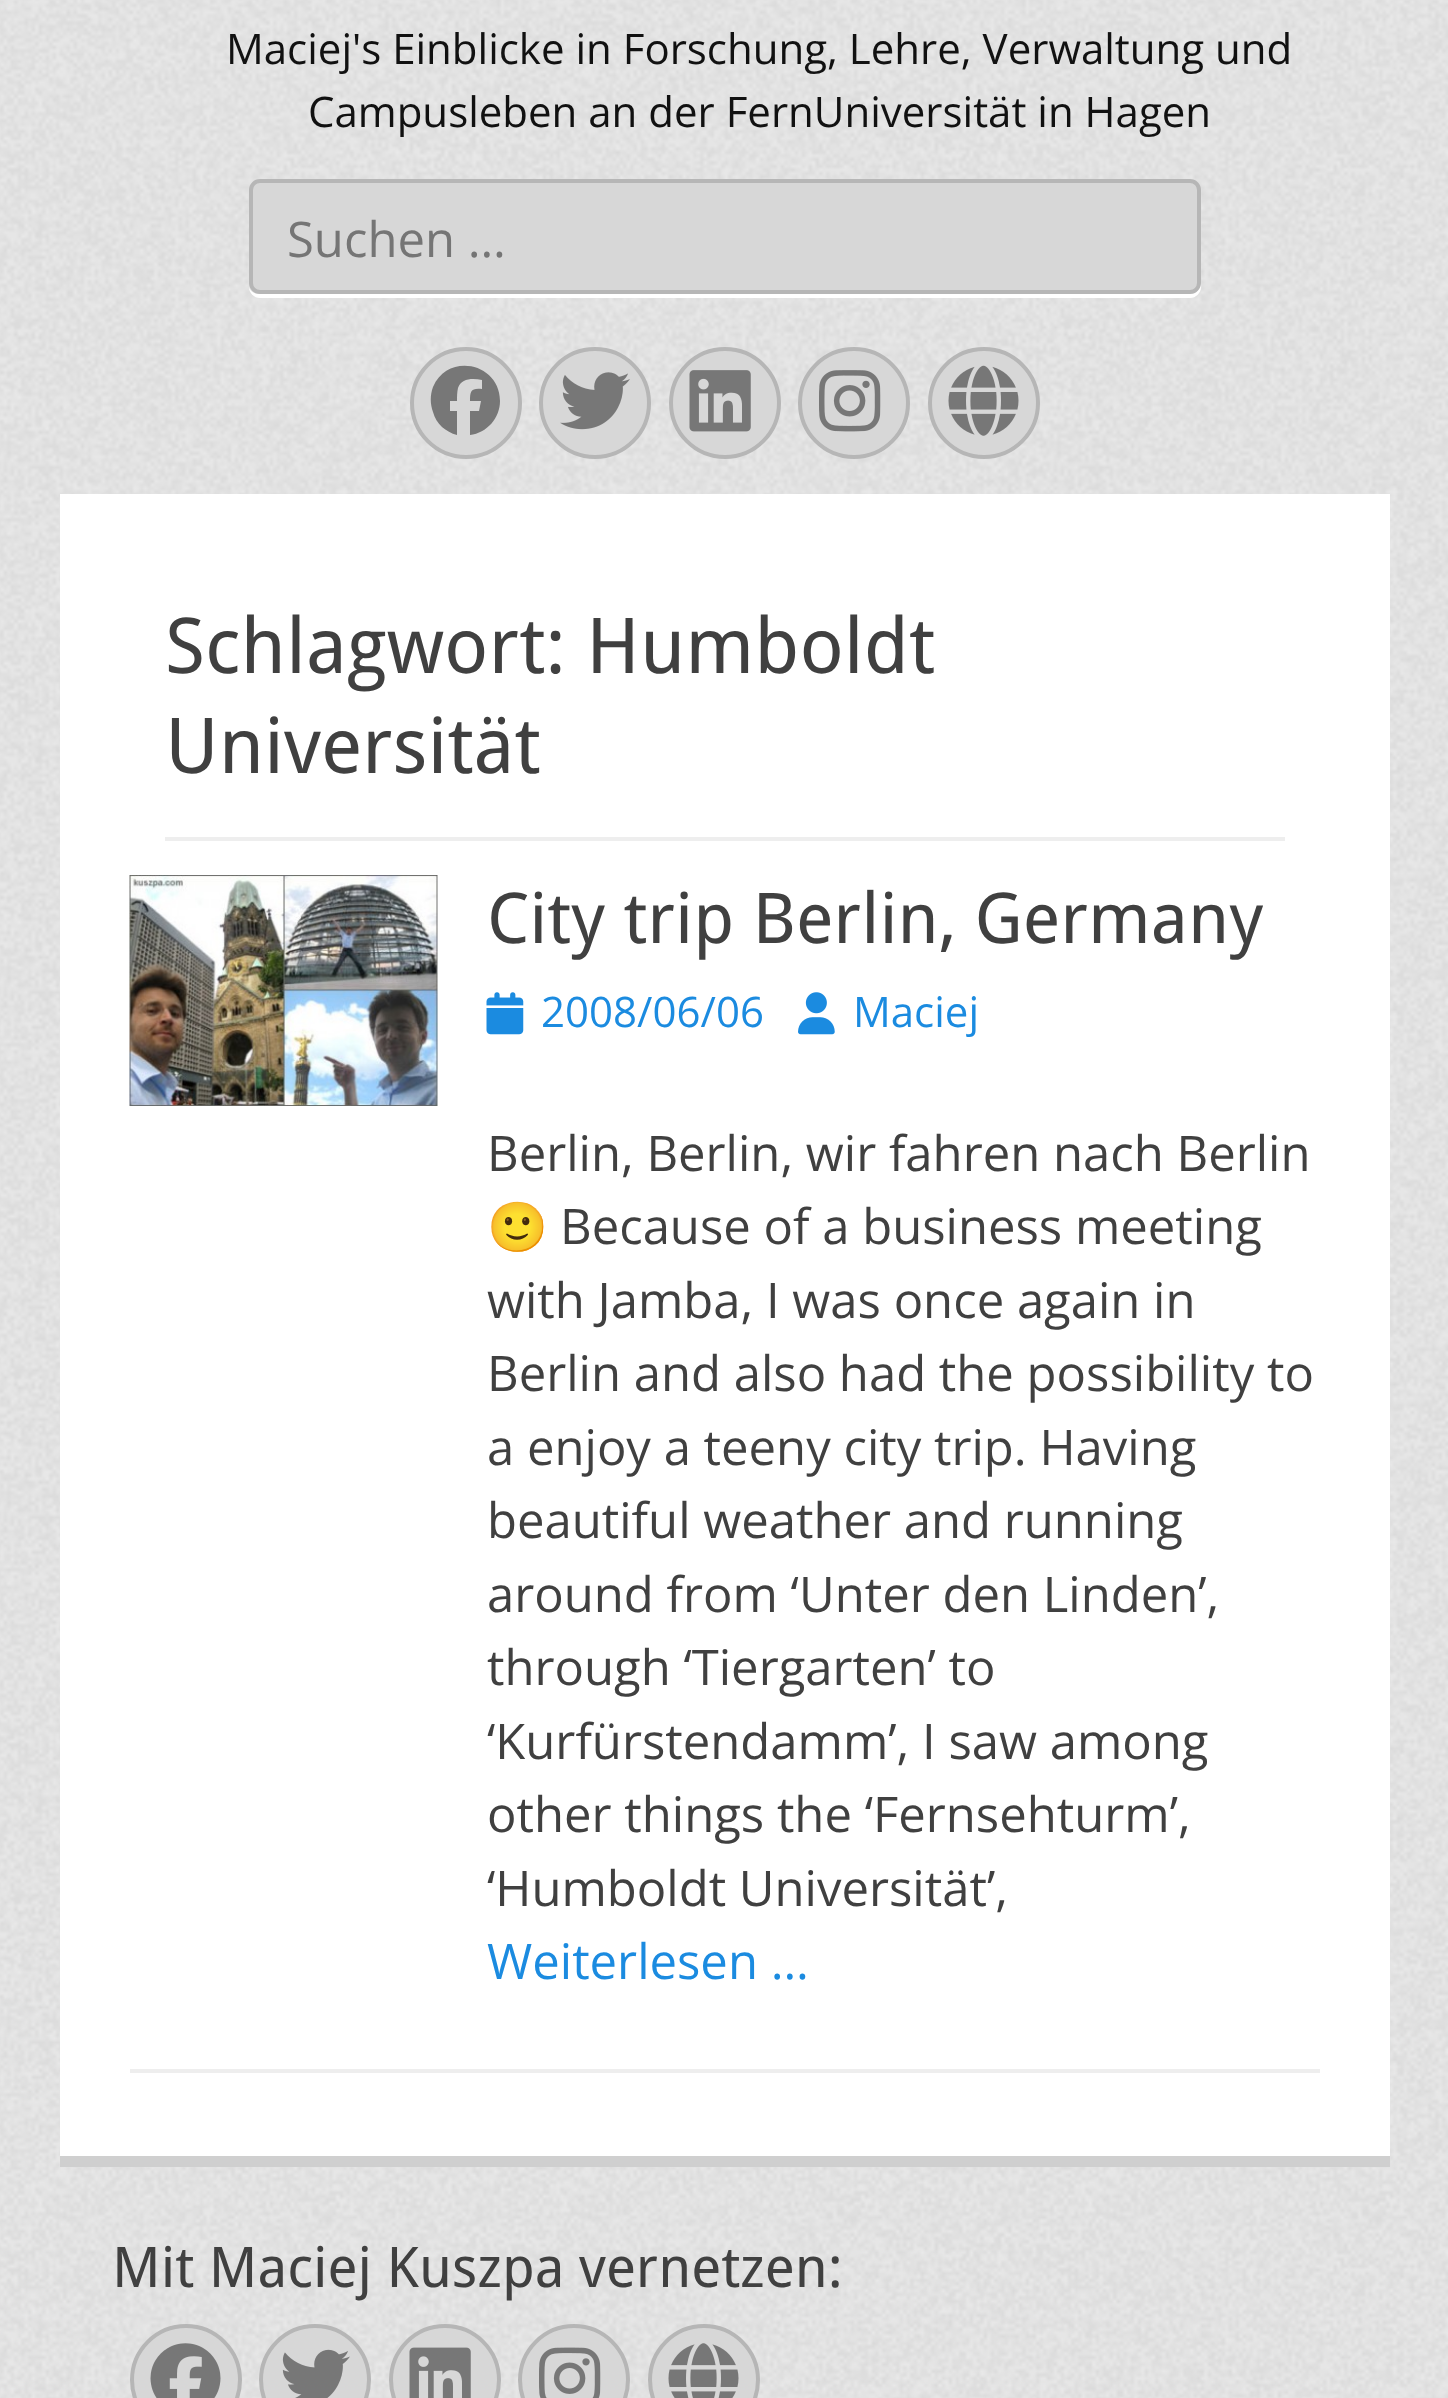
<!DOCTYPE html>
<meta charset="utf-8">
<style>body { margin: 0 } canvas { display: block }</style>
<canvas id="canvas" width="1448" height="2398"></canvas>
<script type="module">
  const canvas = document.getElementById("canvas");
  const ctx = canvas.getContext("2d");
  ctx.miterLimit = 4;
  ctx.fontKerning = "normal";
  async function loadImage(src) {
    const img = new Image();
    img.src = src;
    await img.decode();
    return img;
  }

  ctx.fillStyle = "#ffffff";
  ctx.fillRect(0, 0, 1448, 2398);
  ctx.drawImage(await loadImage("img1.png"), 0, 0, 1448, 2398);
  ctx.font = "42px Open Sans";
  ctx.fillStyle = "#111111";
  ctx.fillText("Maciej's Einblicke in Forschung, Lehre, Verwaltung und", 226, 64);
  ctx.fillText("Campusleben an der FernUniversität in Hagen", 308, 127);
  ctx.fillStyle = "#ffffff";
  ctx.beginPath();
  ctx.moveTo(249, 287);
  ctx.bezierCurveTo(249, 293, 254, 298, 260, 298);
  ctx.lineTo(1190, 298);
  ctx.bezierCurveTo(1196, 298, 1201, 293, 1201, 287);
  ctx.lineTo(1201, 193);
  ctx.lineTo(1200, 190);
  ctx.lineTo(1200, 284);
  ctx.bezierCurveTo(1200, 289, 1196, 294, 1190, 294);
  ctx.lineTo(259, 294);
  ctx.bezierCurveTo(254, 294, 250, 291, 249, 287);
  ctx.closePath();
  ctx.fill();
  ctx.fillStyle = "#d7d7d7";
  ctx.beginPath();
  ctx.roundRect(251, 181, 948, 111, 9);
  ctx.fill();
  ctx.strokeStyle = "#b6b6b6";
  ctx.lineWidth = 4;
  ctx.stroke();
  ctx.font = "49px Open Sans";
  ctx.fillStyle = "#757575";
  ctx.fillText("Suchen …", 287, 257);
  ctx.fillStyle = "#d7d7d7";
  ctx.beginPath();
  ctx.arc(466, 403, 54, 0, Math.PI * 2);
  ctx.fill();
  ctx.stroke();
  ctx.fillStyle = "#777777";
  ctx.beginPath();
  ctx.moveTo(500, 401);
  ctx.bezierCurveTo(500, 363, 448, 352, 433, 387);
  ctx.bezierCurveTo(430, 395, 430, 404, 433, 412);
  ctx.bezierCurveTo(436, 424, 446, 432, 457, 435);
  ctx.lineTo(457, 411);
  ctx.lineTo(450, 411);
  ctx.lineTo(450, 401);
  ctx.lineTo(457, 401);
  ctx.bezierCurveTo(457, 397, 457, 392, 458, 388);
  ctx.bezierCurveTo(461, 378, 473, 378, 482, 380);
  ctx.lineTo(482, 389);
  ctx.bezierCurveTo(471, 388, 470, 391, 470, 401);
  ctx.lineTo(481, 401);
  ctx.lineTo(479, 411);
  ctx.lineTo(470, 411);
  ctx.lineTo(470, 435);
  ctx.bezierCurveTo(487, 433, 500, 418, 500, 401);
  ctx.closePath();
  ctx.fill();
  ctx.fillStyle = "#d7d7d7";
  ctx.beginPath();
  ctx.arc(595, 403, 54, 0, Math.PI * 2);
  ctx.fill();
  ctx.stroke();
  ctx.drawImage(await loadImage("img2.png"), 560, 372, 70, 58);
  ctx.beginPath();
  ctx.arc(725, 403, 54, 0, Math.PI * 2);
  ctx.fill();
  ctx.stroke();
  ctx.drawImage(await loadImage("img3.png"), 689, 370, 62, 62);
  ctx.beginPath();
  ctx.arc(854, 403, 54, 0, Math.PI * 2);
  ctx.fill();
  ctx.stroke();
  ctx.drawImage(await loadImage("img4.png"), 819, 370, 62, 62);
  ctx.beginPath();
  ctx.arc(984, 403, 54, 0, Math.PI * 2);
  ctx.fill();
  ctx.stroke();
  ctx.drawImage(await loadImage("img5.png"), 948, 365, 71, 71);
  ctx.fillStyle = "#ffffff";
  ctx.fillRect(60, 494, 1330, 1662);
  ctx.fillStyle = "#eeeeee";
  ctx.fillRect(165, 837, 1120, 4);
  ctx.font = "77px Droid Sans";
  ctx.fillStyle = "#404040";
  ctx.fillText("Schlagwort: Humboldt", 165, 673);
  ctx.fillText("Universität", 165, 773);
  ctx.fillStyle = "#eeeeee";
  ctx.fillRect(130, 2069, 1190, 4);
  ctx.drawImage(await loadImage("img6.png"), 129, 875, 309, 231);
  ctx.font = "70px Droid Sans";
  ctx.fillStyle = "#404040";
  ctx.fillText("City trip Berlin, Germany", 487, 943);
  ctx.drawImage(await loadImage("img7.png"), 486, 992, 38, 43);
  ctx.font = "42px Open Sans";
  ctx.fillStyle = "#1b8be0";
  ctx.fillText("2008/06/06", 541, 1027);
  ctx.drawImage(await loadImage("img8.png"), 798, 992, 37, 43);
  ctx.fillText("Maciej", 853, 1027);
  ctx.font = "49px Open Sans";
  ctx.fillStyle = "#404040";
  ctx.fillText("Berlin, Berlin, wir fahren nach Berlin", 487, 1171);
  ctx.font = "49px Noto Color Emoji";
  ctx.fillText("🙂", 487, 1244);
  ctx.font = "49px Open Sans";
  ctx.fillText("Because of a business meeting", 560, 1244);
  ctx.fillText("with Jamba, I was once again in", 487, 1318);
  ctx.fillText("Berlin and also had the possibility to", 487, 1391);
  ctx.fillText("a enjoy a teeny city trip. Having", 487, 1465);
  ctx.fillText("beautiful weather and running", 487, 1538);
  ctx.fillText("around from ‘Unter den Linden’,", 487, 1612);
  ctx.fillText("through ‘Tiergarten’ to", 487, 1685);
  ctx.fillText("‘Kurfürstendamm’, I saw among", 487, 1759);
  ctx.fillText("other things the ‘Fernsehturm’,", 487, 1832);
  ctx.fillText("‘Humboldt Universität’,", 487, 1906);
  ctx.fillStyle = "#1b8be0";
  ctx.fillText("Weiterlesen …", 487, 1979);
  ctx.fillStyle = "#cfcfcf";
  ctx.fillRect(60, 2156, 1330, 11);
  ctx.font = "56px Droid Sans";
  ctx.fillStyle = "#404040";
  ctx.fillText("Mit Maciej Kuszpa vernetzen:", 112, 2287);
  ctx.fillStyle = "#d7d7d7";
  ctx.beginPath();
  ctx.arc(186, 2380, 54, 0, Math.PI * 2);
  ctx.fill();
  ctx.stroke();
  ctx.drawImage(await loadImage("img9.png"), 150, 2343, 71, 55);
  ctx.beginPath();
  ctx.arc(315, 2380, 54, 0, Math.PI * 2);
  ctx.fill();
  ctx.stroke();
  ctx.drawImage(await loadImage("img10.png"), 282, 2349, 68, 49);
  ctx.beginPath();
  ctx.arc(445, 2380, 54, 0, Math.PI * 2);
  ctx.fill();
  ctx.stroke();
  ctx.drawImage(await loadImage("img11.png"), 409, 2347, 62, 51);
  ctx.beginPath();
  ctx.arc(574, 2380, 54, 0, Math.PI * 2);
  ctx.fill();
  ctx.stroke();
  ctx.drawImage(await loadImage("img12.png"), 539, 2347, 62, 51);
  ctx.beginPath();
  ctx.arc(704, 2380, 54, 0, Math.PI * 2);
  ctx.fill();
  ctx.stroke();
  ctx.drawImage(await loadImage("img13.png"), 668, 2343, 71, 55);
</script>
